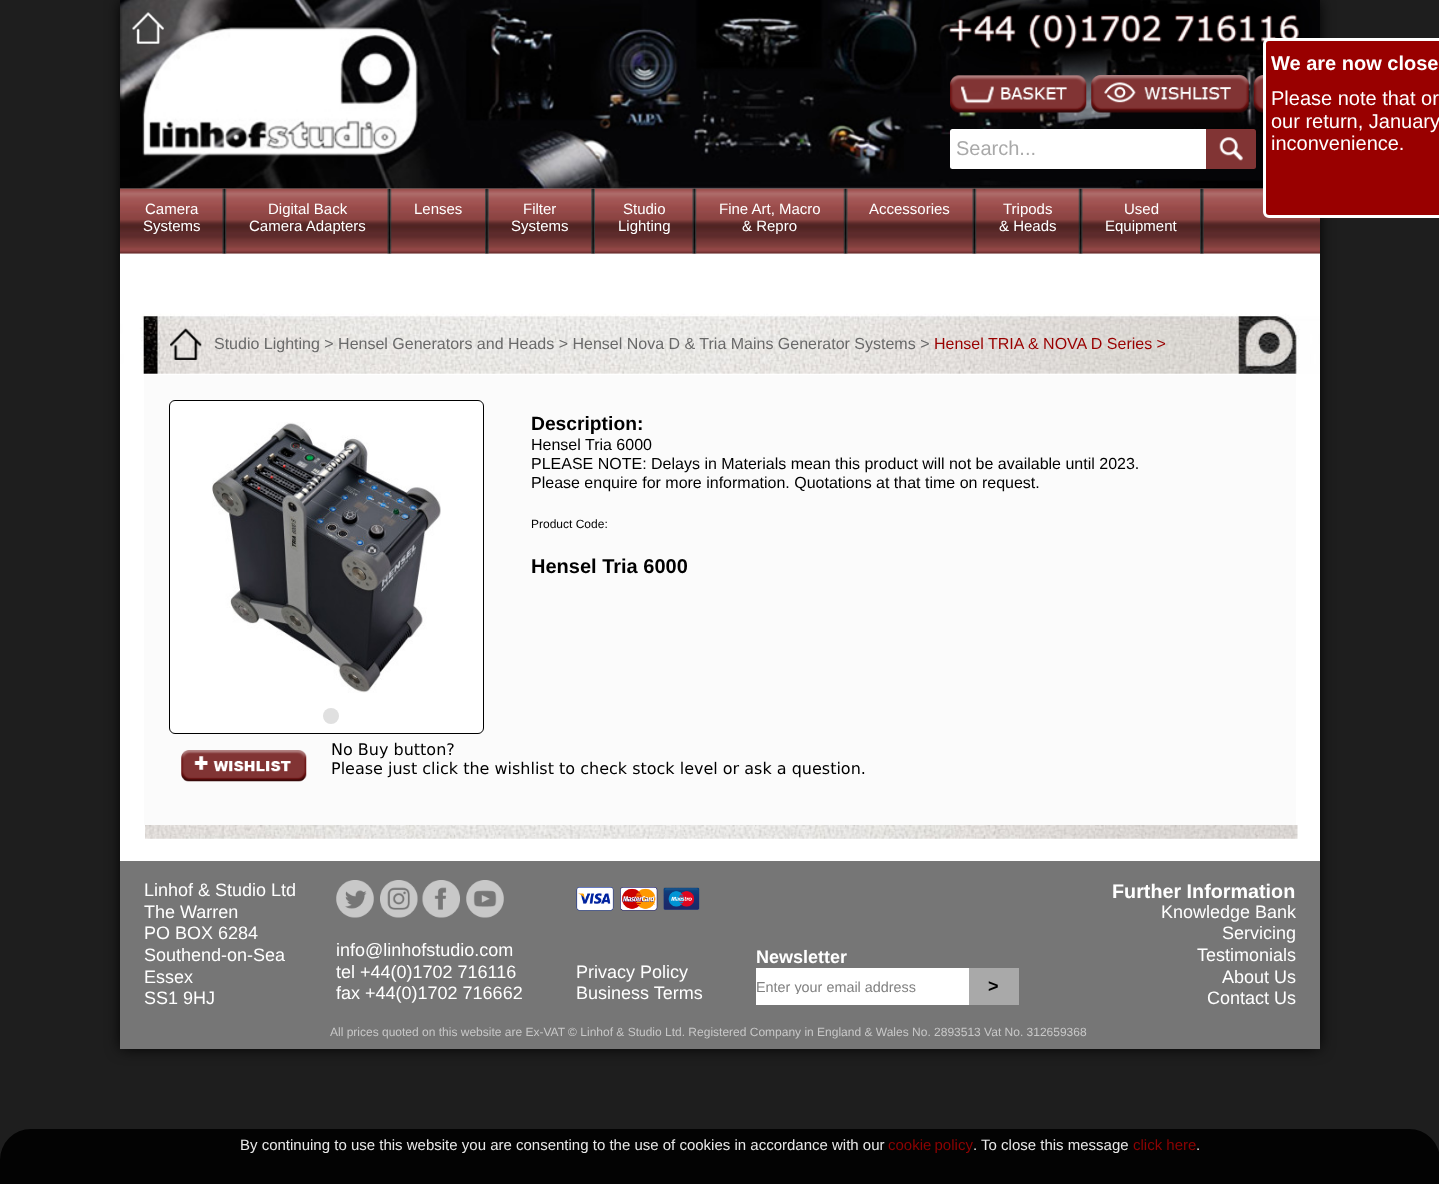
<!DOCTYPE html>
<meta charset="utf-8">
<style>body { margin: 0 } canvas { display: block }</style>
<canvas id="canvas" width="1439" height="1184"></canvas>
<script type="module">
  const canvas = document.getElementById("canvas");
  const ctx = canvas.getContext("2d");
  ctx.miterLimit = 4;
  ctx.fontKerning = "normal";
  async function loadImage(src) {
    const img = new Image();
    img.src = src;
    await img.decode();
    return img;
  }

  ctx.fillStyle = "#1e1e1e";
  ctx.fillRect(0, 0, 1439, 1184);
  ctx.fillStyle = "#000000";
  ctx.filter = "blur(7.5px)";
  ctx.beginPath();
  ctx.rect(121, 1, 1198, 1047);
  ctx.fill();
  ctx.filter = "none";
  ctx.fillStyle = "#ffffff";
  ctx.fillRect(120, 188, 1200, 673);
  ctx.drawImage(await loadImage("img1.png"), 120, 0, 1200, 189);
  ctx.drawImage(await loadImage("img2.png"), 132, 12, 32, 32);
  ctx.drawImage(await loadImage("img3.png"), 950, 75, 137, 38);
  ctx.drawImage(await loadImage("img4.png"), 1091, 75, 158, 38);
  ctx.drawImage(await loadImage("img5.png"), 1253, 75, 10, 38);
  ctx.beginPath();
  ctx.roundRect(950, 129, 256, 40, [2.5, 0, 0, 2.5]);
  ctx.fill();
  ctx.font = "20px Liberation Sans";
  ctx.fillStyle = "#a9a9a9";
  ctx.fillText("Search...", 956, 155);
  ctx.fillStyle = "#813434";
  ctx.beginPath();
  ctx.roundRect(1206, 129, 50, 40, [0, 2.5, 2.5, 0]);
  ctx.fill();
  ctx.drawImage(await loadImage("img6.png"), 1219, 137, 24, 24);
  ctx.drawImage(await loadImage("img7.png"), 120, 188, 1200, 66);
  ctx.fillStyle = "#990000";
  ctx.beginPath();
  ctx.roundRect(1264.5, 39.5, 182, 177, 4.5);
  ctx.fill();
  ctx.strokeStyle = "#ffffff";
  ctx.lineWidth = 3;
  ctx.stroke();
  ctx.font = "bold 20px Liberation Sans";
  ctx.fillStyle = "#ffffff";
  ctx.fillText("We are now close", 1271, 70);
  ctx.font = "20px Liberation Sans";
  ctx.fillText("Please note that or", 1271, 105);
  ctx.fillText("our return, January", 1271, 128);
  ctx.fillText("inconvenience.", 1271, 150);
  ctx.font = "15px Liberation Sans";
  ctx.fillText("Camera", 145, 214);
  ctx.fillText("Systems", 143, 231);
  ctx.drawImage(await loadImage("img8.png"), 222, 188, 5, 66);
  ctx.fillText("Digital Back", 268, 214);
  ctx.fillText("Camera Adapters", 249, 231);
  ctx.drawImage(await loadImage("img9.png"), 387, 188, 5, 66);
  ctx.fillText("Lenses", 414, 214);
  ctx.drawImage(await loadImage("img10.png"), 485, 188, 4, 66);
  ctx.fillText("Filter", 523, 214);
  ctx.fillText("Systems", 511, 231);
  ctx.drawImage(await loadImage("img11.png"), 591, 188, 4, 66);
  ctx.fillText("Studio", 623, 214);
  ctx.fillText("Lighting", 618, 231);
  ctx.drawImage(await loadImage("img12.png"), 692, 188, 5, 66);
  ctx.fillText("Fine Art, Macro", 719, 214);
  ctx.fillText("& Repro", 742, 231);
  ctx.drawImage(await loadImage("img13.png"), 843, 188, 5, 66);
  ctx.fillText("Accessories", 869, 214);
  ctx.drawImage(await loadImage("img14.png"), 972, 188, 5, 66);
  ctx.fillText("Tripods", 1003, 214);
  ctx.fillText("& Heads", 999, 231);
  ctx.drawImage(await loadImage("img15.png"), 1078, 188, 5, 66);
  ctx.fillText("Used", 1124, 214);
  ctx.fillText("Equipment", 1105, 231);
  ctx.drawImage(await loadImage("img16.png"), 1200, 188, 4, 66);
  ctx.drawImage(await loadImage("img17.png"), 120, 253, 1200, 121);
  ctx.drawImage(await loadImage("img18.png"), 170, 328, 32, 32);
  ctx.font = "16px Liberation Sans";
  ctx.fillStyle = "#696969";
  ctx.fillText("Studio Lighting > Hensel Generators and Heads > Hensel Nova D & Tria Mains Generator Systems >", 214, 349);
  ctx.fillStyle = "#990000";
  ctx.fillText("Hensel TRIA & NOVA D Series >", 934, 349);
  ctx.fillStyle = "#fbfbfb";
  ctx.fillRect(144, 375, 1152, 450);
  ctx.font = "bold 19.25px Liberation Sans";
  ctx.fillStyle = "#000000";
  ctx.fillText("Description:", 531, 430);
  ctx.font = "16px Liberation Sans";
  ctx.fillText("Hensel Tria 6000", 531, 450);
  ctx.fillText("PLEASE NOTE: Delays in Materials mean this product will not be available until 2023.", 531, 469);
  ctx.fillText("Please enquire for more information. Quotations at that time on request.", 531, 488);
  ctx.font = "12px Liberation Sans";
  ctx.fillText("Product Code:", 531, 528);
  ctx.font = "bold 20px Liberation Sans";
  ctx.fillText("Hensel Tria 6000", 531, 573);
  ctx.fillStyle = "#ffffff";
  ctx.beginPath();
  ctx.roundRect(169.5, 400.5, 314, 333, 5.5);
  ctx.fill();
  ctx.strokeStyle = "#000000";
  ctx.lineWidth = 1;
  ctx.stroke();
  ctx.drawImage(await loadImage("img19.png"), 212, 422, 229, 271);
  ctx.fillStyle = "#e0e0e0";
  ctx.beginPath();
  ctx.arc(331, 716, 8, 0, Math.PI * 2);
  ctx.fill();
  ctx.drawImage(await loadImage("img20.png"), 181, 750, 126, 32);
  ctx.font = "16px DejaVu Sans";
  ctx.fillStyle = "#000000";
  ctx.fillText("No Buy button?", 331, 755);
  ctx.fillText("Please just click the wishlist to check stock level or ask a question.", 331, 774);
  ctx.drawImage(await loadImage("img21.png"), 145, 825, 1153, 14);
  ctx.fillStyle = "#767676";
  ctx.fillRect(120, 861, 1200, 188);
  ctx.font = "18px Liberation Sans";
  ctx.fillStyle = "#ffffff";
  ctx.fillText("Linhof & Studio Ltd", 144, 896);
  ctx.fillText("The Warren", 144, 918);
  ctx.fillText("PO BOX 6284", 144, 939);
  ctx.fillText("Southend-on-Sea", 144, 961);
  ctx.fillText("Essex", 144, 983);
  ctx.fillText("SS1 9HJ", 144, 1004);
  ctx.drawImage(await loadImage("img22.png"), 336, 880, 38, 38);
  ctx.drawImage(await loadImage("img23.png"), 380, 880, 38, 38);
  ctx.drawImage(await loadImage("img24.png"), 422, 880, 38, 38);
  ctx.drawImage(await loadImage("img25.png"), 466, 880, 38, 38);
  ctx.fillText("info@linhofstudio.com", 336, 956);
  ctx.fillText("tel +44(0)1702 716116", 336, 978);
  ctx.fillText("fax +44(0)1702 716662", 336, 999);
  ctx.drawImage(await loadImage("img26.png"), 576, 887, 38, 24);
  ctx.drawImage(await loadImage("img27.png"), 620, 887, 38, 24);
  ctx.drawImage(await loadImage("img28.png"), 663, 887, 37, 23);
  ctx.fillText("Privacy Policy", 576, 978);
  ctx.fillText("Business Terms", 576, 999);
  ctx.font = "bold 18px Liberation Sans";
  ctx.fillText("Newsletter", 756, 963);
  ctx.fillRect(756, 968, 213, 37);
  ctx.save();
  ctx.beginPath();
  ctx.rect(756, 979, 213, 15);
  ctx.clip();
  ctx.font = "14.4px Liberation Sans";
  ctx.fillStyle = "#808080";
  ctx.fillText("Enter your email address", 756, 992);
  ctx.restore();
  ctx.fillStyle = "#a9a9a9";
  ctx.fillRect(969, 968, 50, 37);
  ctx.fillStyle = "#000000";
  ctx.fillText(">", 988, 992);
  ctx.font = "bold 19.75px Liberation Sans";
  ctx.fillStyle = "#ffffff";
  ctx.fillText("Further Information", 1112, 898);
  ctx.font = "18px Liberation Sans";
  ctx.fillText("Knowledge Bank", 1161, 918);
  ctx.fillText("Servicing", 1222, 939);
  ctx.fillText("Testimonials", 1197, 961);
  ctx.fillText("About Us", 1222, 983);
  ctx.fillText("Contact Us", 1207, 1004);
  ctx.font = "12px Liberation Sans";
  ctx.fillStyle = "#c8c8c8";
  ctx.fillText("All prices quoted on this website are Ex-VAT © Linhof & Studio Ltd. Registered Company in England & Wales No. 2893513 Vat No. 312659368", 330, 1036);
  ctx.fillStyle = "#030303";
  ctx.beginPath();
  ctx.roundRect(0, 1129, 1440, 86, 31);
  ctx.fill();
  ctx.font = "15px Liberation Sans";
  ctx.fillStyle = "#e9e9e9";
  ctx.fillText("By continuing to use this website you are consenting to the use of cookies in accordance with our", 240, 1150);
  ctx.wordSpacing = "-1px";
  ctx.fillStyle = "#8d0303";
  ctx.fillText("cookie policy", 888, 1150);
  ctx.wordSpacing = "0px";
  ctx.fillStyle = "#e9e9e9";
  ctx.fillText(". To close this message", 973, 1150);
  ctx.fillStyle = "#8d0303";
  ctx.fillText("click here", 1133, 1150);
  ctx.fillStyle = "#e9e9e9";
  ctx.fillText(".", 1196, 1150);
</script>
